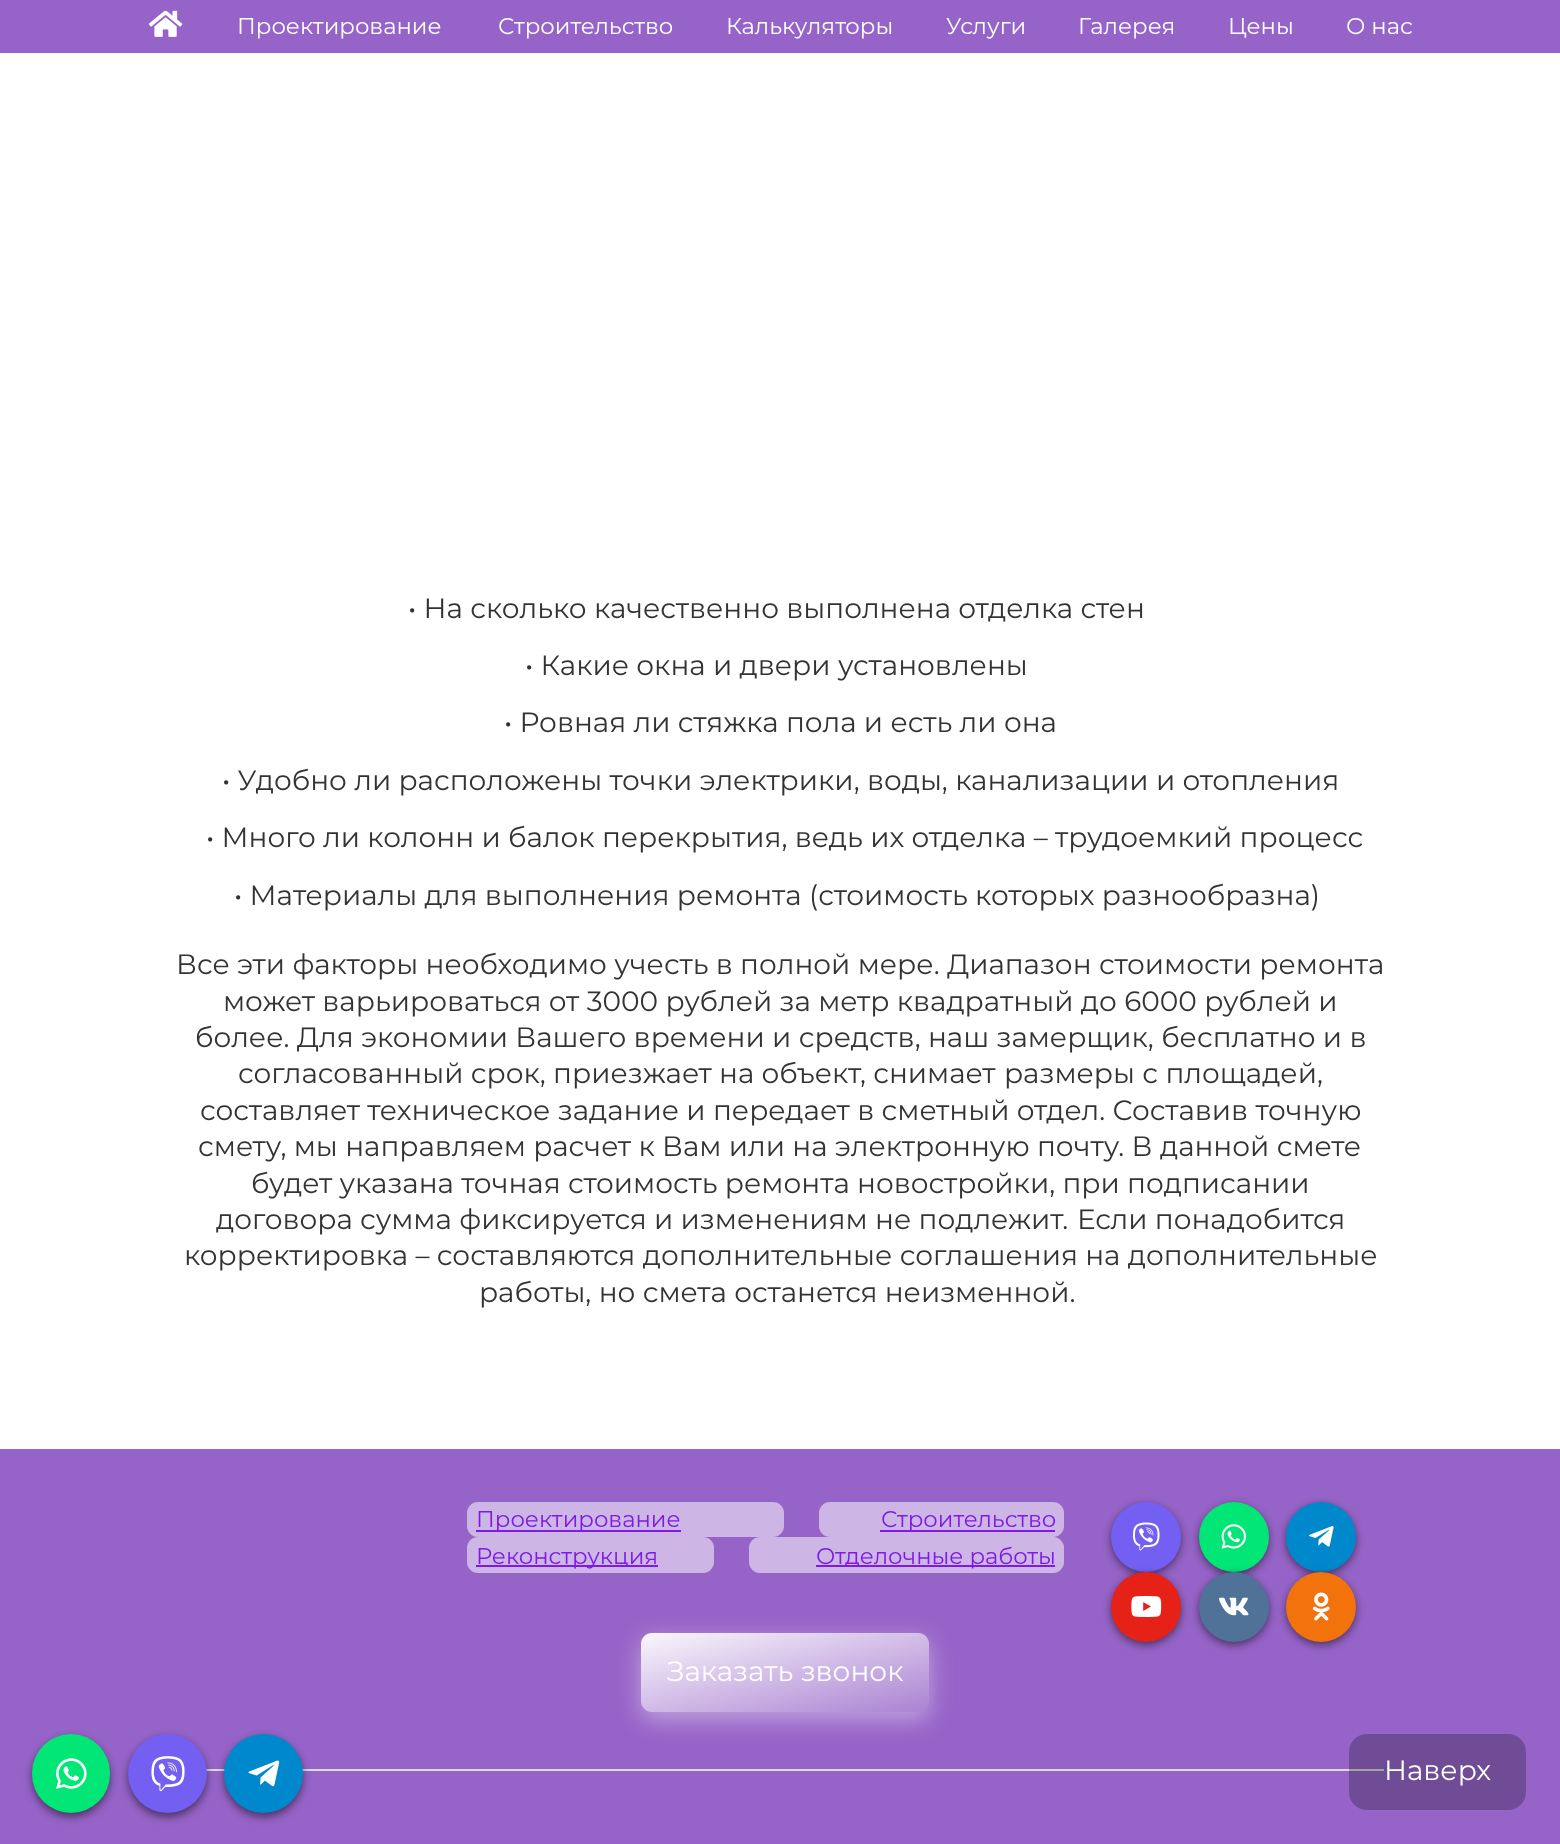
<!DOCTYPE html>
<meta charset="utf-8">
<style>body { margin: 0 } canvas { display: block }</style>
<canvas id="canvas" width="1560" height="1844"></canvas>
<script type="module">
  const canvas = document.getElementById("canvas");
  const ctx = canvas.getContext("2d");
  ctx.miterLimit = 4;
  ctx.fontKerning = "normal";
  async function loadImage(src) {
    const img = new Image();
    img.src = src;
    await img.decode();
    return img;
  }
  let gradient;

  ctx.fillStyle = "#ffffff";
  ctx.fillRect(0, 0, 1560, 1844);
  ctx.fillStyle = "#9664c8";
  ctx.fillRect(0, 0, 1560, 53);
  ctx.drawImage(await loadImage("img1.png"), 148, 10, 35, 27);
  ctx.font = "22.75px Montserrat";
  ctx.fillStyle = "#ffffff";
  ctx.fillText("Проектирование", 237, 34);
  ctx.fillText("Строительство", 498, 34);
  ctx.fillText("Калькуляторы", 726, 34);
  ctx.fillText("Услуги", 946, 34);
  ctx.fillText("Галерея", 1078, 34);
  ctx.fillText("Цены", 1228, 34);
  ctx.fillText("О нас", 1346, 34);
  ctx.font = "28px Montserrat";
  ctx.fillStyle = "#333333";
  ctx.fillText("• На сколько качественно выполнена отделка стен", 408, 618);
  ctx.fillText("• Какие окна и двери установлены", 525, 675);
  ctx.fillText("• Ровная ли стяжка пола и есть ли она", 504, 732);
  ctx.fillText("• Удобно ли расположены точки электрики, воды, канализации и отопления", 222, 790);
  ctx.fillText("• Много ли колонн и балок перекрытия, ведь их отделка – трудоемкий процесс", 206, 847);
  ctx.fillText("• Материалы для выполнения ремонта (стоимость которых разнообразна)", 234, 905);
  ctx.fillText("Все эти факторы необходимо учесть в полной мере. Диапазон стоимости ремонта", 176, 974);
  ctx.fillText("может варьироваться от 3000 рублей за метр квадратный до 6000 рублей и", 223, 1011);
  ctx.fillText("более. Для экономии Вашего времени и средств, наш замерщик, бесплатно и в", 195, 1047);
  ctx.fillText("согласованный срок, приезжает", 238, 1083);
  ctx.fillText("на объект, снимает", 719, 1083);
  ctx.fillText("размеры с площадей,", 1004, 1083);
  ctx.fillText("составляет техническое задание и передает в сметный отдел. Составив точную", 200, 1120);
  ctx.fillText("смету, мы направляем расчет к Вам или на электронную почту. В данной смете", 198, 1156);
  ctx.fillText("будет указана точная стоимость ремонта новостройки, при подписании", 251, 1193);
  ctx.fillText("договора сумма фиксируется", 216, 1229);
  ctx.fillText("и изменениям не подлежит.", 654, 1229);
  ctx.fillText("Если понадобится", 1077, 1229);
  ctx.fillText("корректировка – составляются дополнительные соглашения на дополнительные", 184, 1265);
  ctx.fillText("работы, но смета останется неизменной.", 479, 1302);
  ctx.fillStyle = "#9664c8";
  ctx.fillRect(0, 1449, 1560, 395);
  ctx.fillStyle = "#cdb6e5";
  ctx.beginPath();
  ctx.roundRect(467, 1502, 317, 35, 11);
  ctx.fill();
  ctx.fillStyle = "#7f19e6";
  ctx.fillRect(476, 1530, 205, 2);
  ctx.font = "22.75px Montserrat";
  ctx.fillText("Проектирование", 476, 1527);
  ctx.fillStyle = "#cdb6e5";
  ctx.beginPath();
  ctx.roundRect(819, 1502, 245, 35, 11);
  ctx.fill();
  ctx.fillStyle = "#7f19e6";
  ctx.fillRect(880, 1530, 175, 2);
  ctx.fillText("Строительство", 881, 1527);
  ctx.fillStyle = "#cdb6e5";
  ctx.beginPath();
  ctx.roundRect(467, 1537, 247, 36, 11);
  ctx.fill();
  ctx.fillStyle = "#7f19e6";
  ctx.fillRect(476, 1565, 182, 2);
  ctx.fillText("Реконструкция", 476, 1564);
  ctx.fillStyle = "#cdb6e5";
  ctx.beginPath();
  ctx.roundRect(749, 1537, 315, 36, 11);
  ctx.fill();
  ctx.fillStyle = "#7f19e6";
  ctx.fillRect(816, 1565, 239, 2);
  ctx.fillText("Отделочные работы", 816, 1564);
  ctx.fillStyle = "rgba(0, 0, 0, 0.5)";
  ctx.filter = "blur(4.5px)";
  ctx.beginPath();
  ctx.roundRect(1111, 1505, 70, 70, 35);
  ctx.fill();
  ctx.filter = "none";
  ctx.fillStyle = "#735ff2";
  ctx.beginPath();
  ctx.arc(1146, 1537, 35, 0, Math.PI * 2);
  ctx.fill();
  ctx.drawImage(await loadImage("img2.png"), 1133, 1522, 27, 29);
  ctx.fillStyle = "rgba(0, 0, 0, 0.5)";
  ctx.filter = "blur(4.5px)";
  ctx.beginPath();
  ctx.roundRect(1199, 1505, 70, 70, 35);
  ctx.fill();
  ctx.filter = "none";
  ctx.fillStyle = "#01e675";
  ctx.beginPath();
  ctx.arc(1234, 1537, 35, 0, Math.PI * 2);
  ctx.fill();
  ctx.drawImage(await loadImage("img3.png"), 1221, 1524, 25, 25);
  ctx.fillStyle = "rgba(0, 0, 0, 0.5)";
  ctx.filter = "blur(4.5px)";
  ctx.beginPath();
  ctx.roundRect(1286, 1505, 70, 70, 35);
  ctx.fill();
  ctx.filter = "none";
  ctx.fillStyle = "#0088cc";
  ctx.beginPath();
  ctx.arc(1321, 1537, 35, 0, Math.PI * 2);
  ctx.fill();
  ctx.drawImage(await loadImage("img4.png"), 1309, 1526, 25, 21);
  ctx.fillStyle = "rgba(0, 0, 0, 0.5)";
  ctx.filter = "blur(4.5px)";
  ctx.beginPath();
  ctx.roundRect(1111, 1575, 70, 70, 35);
  ctx.fill();
  ctx.filter = "none";
  ctx.fillStyle = "#e62117";
  ctx.beginPath();
  ctx.arc(1146, 1607, 35, 0, Math.PI * 2);
  ctx.fill();
  ctx.drawImage(await loadImage("img5.png"), 1131, 1596, 31, 21);
  ctx.fillStyle = "rgba(0, 0, 0, 0.5)";
  ctx.filter = "blur(4.5px)";
  ctx.beginPath();
  ctx.roundRect(1199, 1575, 70, 70, 35);
  ctx.fill();
  ctx.filter = "none";
  ctx.fillStyle = "#507299";
  ctx.beginPath();
  ctx.arc(1234, 1607, 35, 0, Math.PI * 2);
  ctx.fill();
  ctx.drawImage(await loadImage("img6.png"), 1219, 1597, 30, 19);
  ctx.fillStyle = "rgba(0, 0, 0, 0.5)";
  ctx.filter = "blur(4.5px)";
  ctx.beginPath();
  ctx.roundRect(1286, 1575, 70, 70, 35);
  ctx.fill();
  ctx.filter = "none";
  ctx.fillStyle = "#f2720c";
  ctx.beginPath();
  ctx.arc(1321, 1607, 35, 0, Math.PI * 2);
  ctx.fill();
  ctx.drawImage(await loadImage("img7.png"), 1312, 1592, 18, 29);
  ctx.fillStyle = "rgba(217, 199, 235, 0.66)";
  ctx.filter = "blur(11.5px)";
  ctx.beginPath();
  ctx.roundRect(641, 1640, 288, 79, 11);
  ctx.fill();
  ctx.filter = "none";
  gradient = ctx.createLinearGradient(767, 1601, 803, 1743);
  gradient.addColorStop(0, "#faf7fc");
  gradient.addColorStop(1, "#ab83d3");
  ctx.fillStyle = gradient;
  ctx.beginPath();
  ctx.roundRect(641, 1633, 288, 79, 11);
  ctx.fill();
  ctx.font = "28px Montserrat";
  ctx.fillStyle = "#ffffff";
  ctx.fillText("Заказать звонок", 667, 1681);
  ctx.fillStyle = "#dbdbdb";
  ctx.fillRect(206, 1769, 1178, 2);
  ctx.fillStyle = "rgba(0, 0, 0, 0.5)";
  ctx.filter = "blur(4.5px)";
  ctx.beginPath();
  ctx.roundRect(32, 1738, 78, 79, 39);
  ctx.fill();
  ctx.filter = "none";
  ctx.fillStyle = "#01e675";
  ctx.beginPath();
  ctx.roundRect(32, 1734, 78, 79, 39);
  ctx.fill();
  ctx.drawImage(await loadImage("img8.png"), 56, 1758, 31, 31);
  ctx.fillStyle = "rgba(0, 0, 0, 0.5)";
  ctx.filter = "blur(4.5px)";
  ctx.beginPath();
  ctx.roundRect(128, 1738, 79, 79, 39.5);
  ctx.fill();
  ctx.filter = "none";
  ctx.fillStyle = "#735ff2";
  ctx.beginPath();
  ctx.arc(167.5, 1773.5, 39.5, 0, Math.PI * 2);
  ctx.fill();
  ctx.drawImage(await loadImage("img9.png"), 151, 1756, 34, 36);
  ctx.fillStyle = "rgba(0, 0, 0, 0.5)";
  ctx.filter = "blur(4.5px)";
  ctx.beginPath();
  ctx.roundRect(224, 1738, 79, 79, 39.5);
  ctx.fill();
  ctx.filter = "none";
  ctx.fillStyle = "#0088cc";
  ctx.beginPath();
  ctx.arc(263.5, 1773.5, 39.5, 0, Math.PI * 2);
  ctx.fill();
  ctx.drawImage(await loadImage("img10.png"), 248, 1760, 32, 27);
  ctx.fillStyle = "rgba(0, 0, 0, 0.25)";
  ctx.beginPath();
  ctx.roundRect(1349, 1734, 177, 76, 18);
  ctx.fill();
  ctx.fillStyle = "#ffffff";
  ctx.fillText("Наверх", 1384, 1780);
</script>
